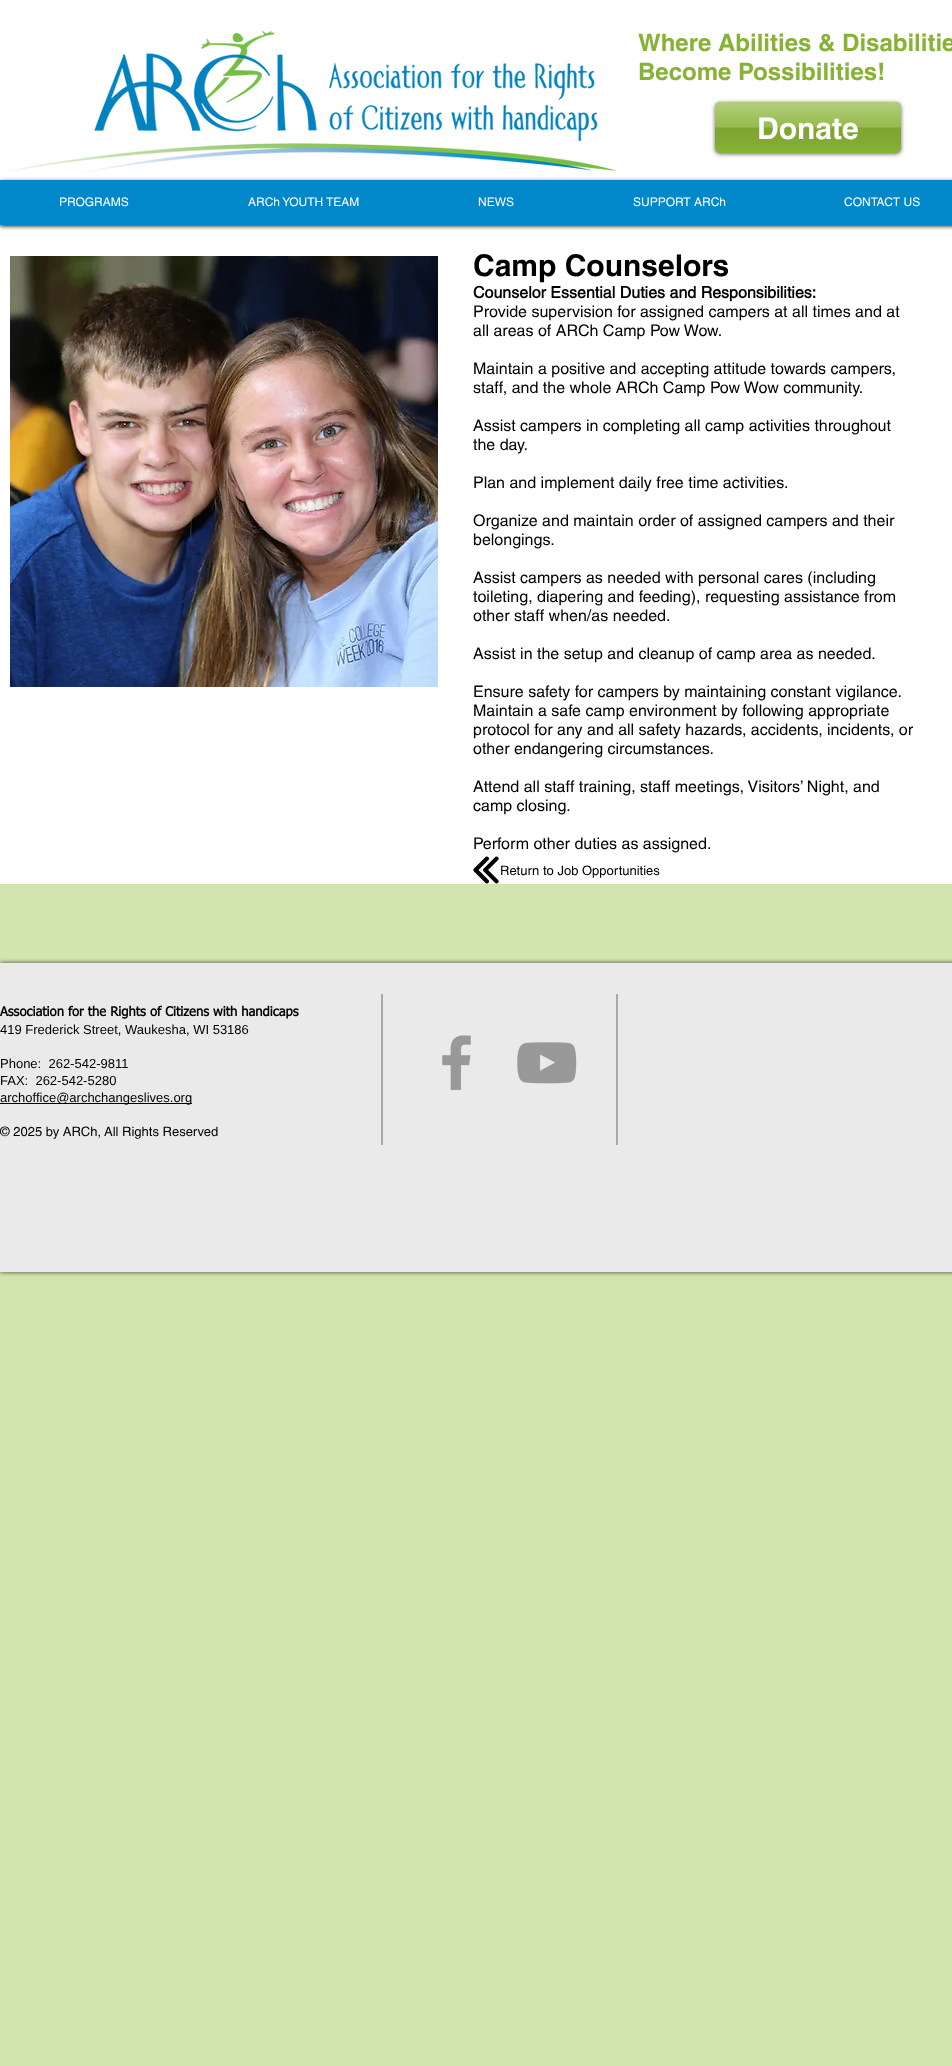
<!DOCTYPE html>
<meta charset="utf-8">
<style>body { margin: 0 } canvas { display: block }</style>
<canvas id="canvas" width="952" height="2066"></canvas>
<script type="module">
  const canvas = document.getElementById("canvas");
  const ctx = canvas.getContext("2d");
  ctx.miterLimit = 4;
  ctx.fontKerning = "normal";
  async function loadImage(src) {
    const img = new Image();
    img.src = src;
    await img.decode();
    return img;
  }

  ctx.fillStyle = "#d3e5af";
  ctx.fillRect(0, 0, 952, 2066);
  ctx.fillStyle = "#ffffff";
  ctx.fillRect(0, 225, 952, 659);
  ctx.fillStyle = "rgba(0, 0, 0, 0.7)";
  ctx.filter = "blur(2.5px)";
  ctx.beginPath();
  ctx.rect(0, 0, 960, 225);
  ctx.fill();
  ctx.filter = "none";
  ctx.fillStyle = "#ffffff";
  ctx.fillRect(0, 0, 952, 180);
  ctx.drawImage(await loadImage("img1.png"), 9, 31, 607, 142);
  ctx.font = "bold 24px helvetica";
  ctx.fillStyle = "#88b235";
  ctx.fillText("Where Abilities & Disabilitie", 638, 51);
  ctx.fillText("Become Possibilities!", 638, 80);
  ctx.fillStyle = "rgba(0, 0, 0, 0.6)";
  ctx.filter = "blur(2px)";
  ctx.beginPath();
  ctx.roundRect(715, 103, 186, 51, 5);
  ctx.fill();
  ctx.filter = "none";
  ctx.fillStyle = "#88b235";
  ctx.beginPath();
  ctx.roundRect(715, 102, 186, 51, 5);
  ctx.fill();
  ctx.drawImage(await loadImage("img2.png"), 715, 102, 186, 46);
  ctx.font = "bold 30px helvetica";
  ctx.fillStyle = "#ffffff";
  ctx.fillText("Donate", 757, 139);
  ctx.fillStyle = "rgba(0, 0, 0, 0.6)";
  ctx.filter = "blur(2px)";
  ctx.beginPath();
  ctx.rect(0, 181, 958, 45);
  ctx.fill();
  ctx.filter = "none";
  ctx.fillStyle = "#0088cb";
  ctx.fillRect(0, 180, 952, 45);
  ctx.font = "12px helvetica";
  ctx.fillStyle = "#ffffff";
  ctx.fillText("PROGRAMS", 59, 206);
  ctx.fillText("ARCh YOUTH TEAM", 248, 206);
  ctx.fillText("NEWS", 478, 206);
  ctx.fillText("SUPPORT ARCh", 633, 206);
  ctx.fillText("CONTACT US", 844, 206);
  ctx.drawImage(await loadImage("img3.png"), 10, 256, 428, 431);
  ctx.font = "bold 30px helvetica";
  ctx.fillStyle = "#000000";
  ctx.fillText("Camp Counselors", 473, 276);
  ctx.font = "bold 16px 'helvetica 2'";
  ctx.fillText("Counselor Essential Duties and Responsibilities:", 473, 298);
  ctx.font = "16px helvetica";
  ctx.fillText("Provide supervision for assigned campers at all times and at", 473, 317);
  ctx.fillText("all areas of ARCh Camp Pow Wow.", 473, 336);
  ctx.fillText("Maintain a positive and accepting attitude towards campers,", 473, 374);
  ctx.fillText("staff, and the whole ARCh Camp Pow Wow community.", 473, 393);
  ctx.fillText("Assist campers in completing all camp activities throughout", 473, 431);
  ctx.fillText("the day.", 473, 450);
  ctx.fillText("Plan and implement daily free time activities.", 473, 488);
  ctx.fillText("Organize and maintain order of assigned campers and their", 473, 526);
  ctx.fillText("belongings.", 473, 545);
  ctx.fillText("Assist campers as needed with personal cares (including", 473, 583);
  ctx.fillText("toileting, diapering and feeding), requesting assistance from", 473, 602);
  ctx.fillText("other staff when/as needed.", 473, 621);
  ctx.fillText("Assist in the setup and cleanup of camp area as needed.", 473, 659);
  ctx.fillText("Ensure safety for campers by maintaining constant vigilance.", 473, 697);
  ctx.fillText("Maintain a safe camp environment by following appropriate", 473, 716);
  ctx.fillText("protocol for any and all safety hazards, accidents, incidents, or", 473, 735);
  ctx.fillText("other endangering circumstances.", 473, 754);
  ctx.fillText("Attend all staff training, staff meetings, Visitors’ Night, and", 473, 792);
  ctx.fillText("camp closing.", 473, 811);
  ctx.fillText("Perform other duties as assigned.", 473, 849);
  ctx.drawImage(await loadImage("img4.png"), 473, 856, 26, 28);
  ctx.font = "13px helvetica";
  ctx.fillText("Return to Job Opportunities", 500, 875);
  ctx.fillStyle = "rgba(0, 0, 0, 0.7)";
  ctx.filter = "blur(2.5px)";
  ctx.beginPath();
  ctx.rect(0, 963, 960, 309);
  ctx.fill();
  ctx.filter = "none";
  ctx.fillStyle = "#eaeaea";
  ctx.fillRect(0, 963, 952, 309);
  ctx.font = "bold 13px tahoma";
  ctx.fillStyle = "#000000";
  ctx.fillText("Association for the Rights of Citizens with handicaps", 0, 1016);
  ctx.font = "13px Liberation Sans";
  ctx.fillText("419 Frederick Street, Waukesha, WI 53186", 0, 1034);
  ctx.fillText("Phone:  262-542-9811", 0, 1068);
  ctx.fillText("FAX:  262-542-5280", 0, 1085);
  ctx.fillRect(0, 1103, 192, 1);
  ctx.fillText("archoffice@archchangeslives.org", 0, 1102);
  ctx.font = "13px helvetica";
  ctx.fillText("© 2025 by ARCh,", 0, 1136);
  ctx.fillText("All Rights Reserved", 104, 1136);
  ctx.fillStyle = "#a9a9a9";
  ctx.fillRect(381, 994, 2, 151);
  ctx.drawImage(await loadImage("img5.png"), 442, 1035, 29, 56);
  ctx.drawImage(await loadImage("img6.png"), 517, 1042, 60, 42);
  ctx.fillRect(616, 994, 2, 151);
</script>
